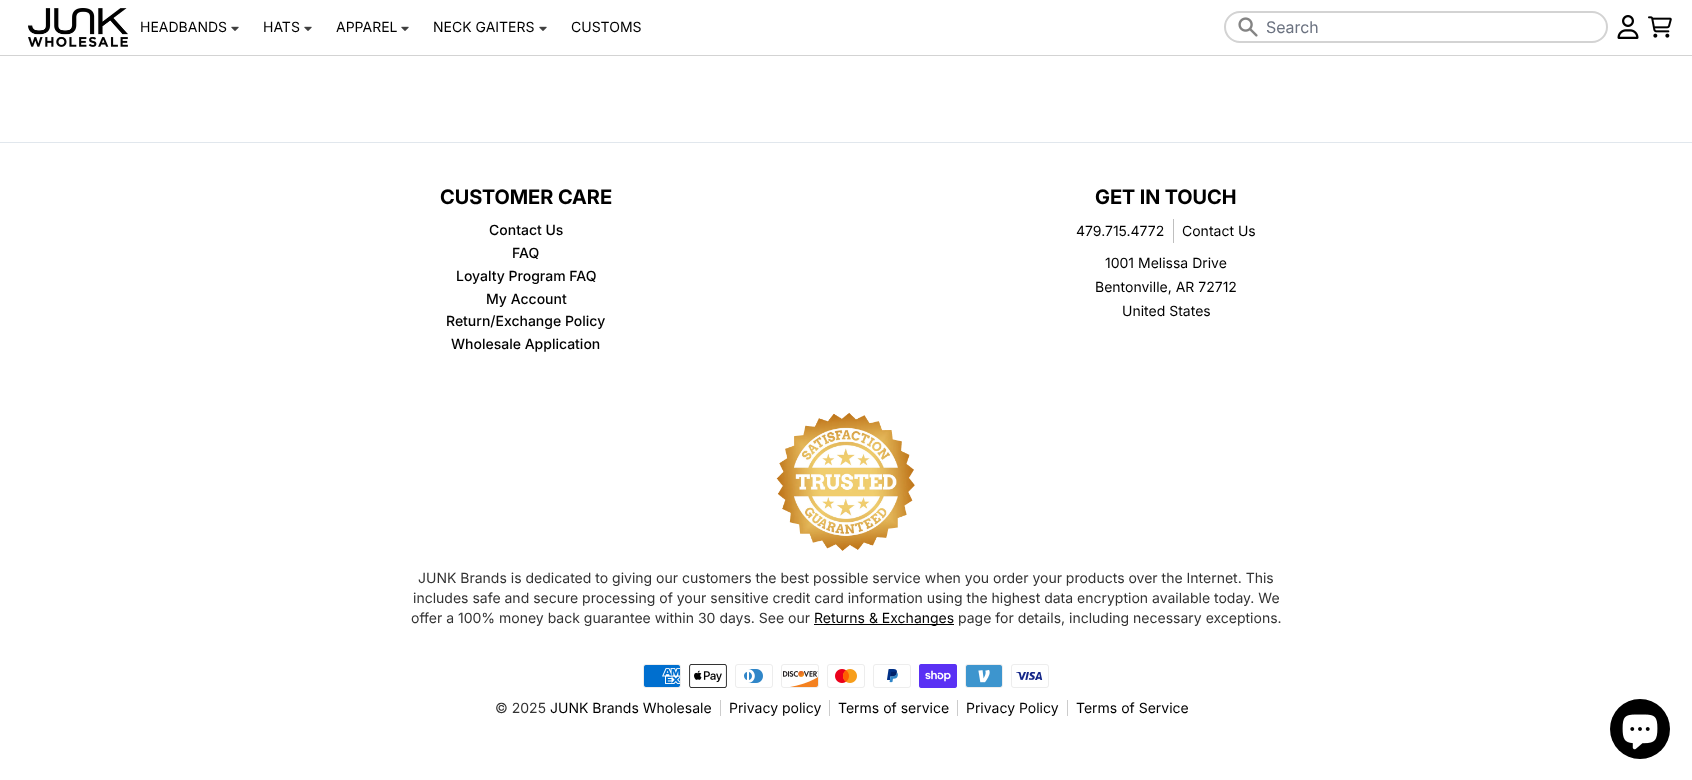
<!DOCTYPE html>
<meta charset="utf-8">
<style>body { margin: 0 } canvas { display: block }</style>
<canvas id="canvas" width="1692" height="780"></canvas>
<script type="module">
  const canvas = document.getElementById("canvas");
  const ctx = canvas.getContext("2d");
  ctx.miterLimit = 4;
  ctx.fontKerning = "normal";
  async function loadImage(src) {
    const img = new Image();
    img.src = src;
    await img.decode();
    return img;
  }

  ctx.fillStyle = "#ffffff";
  ctx.fillRect(0, 0, 1692, 780);
  ctx.fillStyle = "#d3d3d3";
  ctx.fillRect(0, 55, 1692, 1);
  ctx.drawImage(await loadImage("img1.png"), 28, 8, 100, 39);
  ctx.font = "14px Inter";
  ctx.fillStyle = "#000000";
  ctx.fillText("HEADBANDS", 140, 32);
  ctx.drawImage(await loadImage("img2.png"), 231, 26, 8, 5);
  ctx.fillText("HATS", 263, 32);
  ctx.drawImage(await loadImage("img2.png"), 304, 26, 8, 5);
  ctx.fillText("APPAREL", 336, 32);
  ctx.drawImage(await loadImage("img2.png"), 401, 26, 8, 5);
  ctx.fillText("NECK GAITERS", 433, 32);
  ctx.drawImage(await loadImage("img2.png"), 539, 26, 8, 5);
  ctx.fillText("CUSTOMS", 571, 32);
  ctx.drawImage(await loadImage("img3.png"), 1238, 17, 20, 20);
  ctx.beginPath();
  ctx.roundRect(1225, 12, 382, 30, 15);
  ctx.strokeStyle = "#d3d3d3";
  ctx.lineWidth = 2;
  ctx.stroke();
  ctx.font = "16px 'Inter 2'";
  ctx.fillStyle = "#6b7280";
  ctx.fillText("Search", 1266, 33);
  ctx.drawImage(await loadImage("img4.png"), 1617, 15, 22, 24);
  ctx.drawImage(await loadImage("img5.png"), 1648, 16, 24, 22);
  ctx.fillStyle = "#e1e7ed";
  ctx.fillRect(0, 142, 1692, 1);
  ctx.font = "bold 20px Inter";
  ctx.fillStyle = "#000000";
  ctx.fillText("CUSTOMER CARE", 440, 204);
  ctx.font = "500 14px Inter";
  ctx.fillText("Contact Us", 489, 235);
  ctx.fillText("FAQ", 512, 258);
  ctx.fillText("Loyalty Program FAQ", 456, 281);
  ctx.fillText("My Account", 486, 304);
  ctx.fillText("Return/Exchange Policy", 446, 326);
  ctx.fillText("Wholesale Application", 451, 349);
  ctx.font = "bold 20px Inter";
  ctx.fillText("GET IN TOUCH", 1095, 204);
  ctx.font = "14px Inter";
  ctx.fillText("479.715.4772", 1076, 236);
  ctx.fillStyle = "#bfbfbf";
  ctx.fillRect(1173, 219, 1, 24);
  ctx.fillStyle = "#000000";
  ctx.fillText("Contact Us", 1182, 236);
  ctx.fillText("1001 Melissa Drive", 1105, 268);
  ctx.fillText("Bentonville, AR 72712", 1095, 292);
  ctx.fillText("United States", 1122, 316);
  ctx.drawImage(await loadImage("img6.png"), 776, 412, 139, 139);
  ctx.fillStyle = "#333333";
  ctx.fillText("JUNK Brands is dedicated to giving our customers the best possible service when you order your products over the Internet. This", 418, 583);
  ctx.fillText("includes safe and secure processing of your sensitive credit card information using the highest data encryption available today. We", 413, 603);
  ctx.fillText("offer a 100% money back guarantee within 30 days. See our", 411, 623);
  ctx.fillStyle = "#000000";
  ctx.fillRect(814, 624, 140, 1);
  ctx.fillText("Returns & Exchanges", 814, 623);
  ctx.fillStyle = "#333333";
  ctx.fillText("page for details, including necessary exceptions.", 958, 623);
  ctx.drawImage(await loadImage("img7.png"), 643, 664, 38, 24);
  ctx.drawImage(await loadImage("img8.png"), 689, 664, 38, 24);
  ctx.drawImage(await loadImage("img9.png"), 735, 664, 38, 24);
  ctx.drawImage(await loadImage("img10.png"), 781, 664, 38, 24);
  ctx.drawImage(await loadImage("img11.png"), 827, 664, 38, 24);
  ctx.drawImage(await loadImage("img12.png"), 873, 664, 38, 24);
  ctx.drawImage(await loadImage("img13.png"), 919, 664, 38, 24);
  ctx.drawImage(await loadImage("img14.png"), 965, 664, 38, 24);
  ctx.drawImage(await loadImage("img15.png"), 1011, 664, 38, 24);
  ctx.fillText("© 2025", 495, 713);
  ctx.fillStyle = "#000000";
  ctx.fillText("JUNK Brands Wholesale", 550, 713);
  ctx.fillStyle = "#cccccc";
  ctx.fillRect(720, 700, 1, 16);
  ctx.fillStyle = "#000000";
  ctx.fillText("Privacy policy", 729, 713);
  ctx.fillStyle = "#cccccc";
  ctx.fillRect(829, 700, 1, 16);
  ctx.fillStyle = "#000000";
  ctx.fillText("Terms of service", 838, 713);
  ctx.fillStyle = "#cccccc";
  ctx.fillRect(957, 700, 1, 16);
  ctx.fillStyle = "#000000";
  ctx.fillText("Privacy Policy", 966, 713);
  ctx.fillStyle = "#cccccc";
  ctx.fillRect(1067, 700, 1, 16);
  ctx.fillStyle = "#000000";
  ctx.fillText("Terms of Service", 1076, 713);
  ctx.beginPath();
  ctx.arc(1640, 729, 30, 0, Math.PI * 2);
  ctx.fill();
  ctx.drawImage(await loadImage("img16.png"), 1622, 714, 36, 36);
</script>
